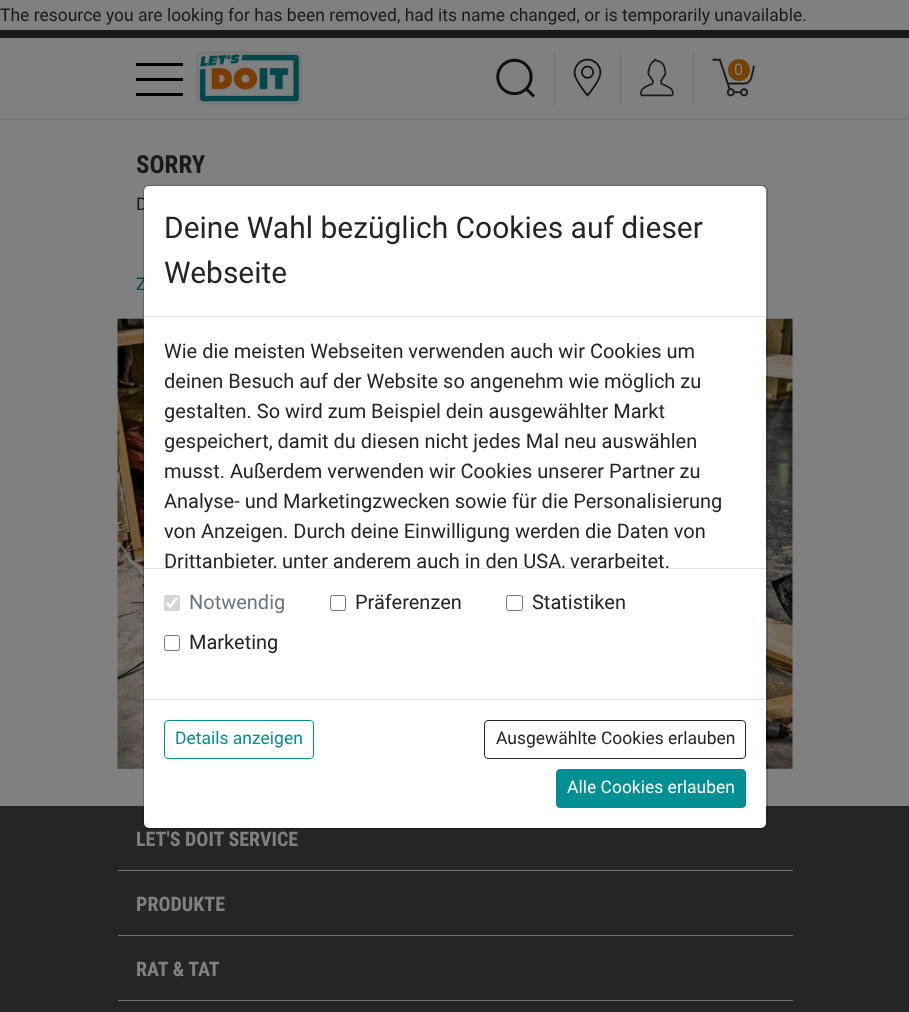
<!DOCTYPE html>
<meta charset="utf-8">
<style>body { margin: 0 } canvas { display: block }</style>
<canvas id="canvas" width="909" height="1012"></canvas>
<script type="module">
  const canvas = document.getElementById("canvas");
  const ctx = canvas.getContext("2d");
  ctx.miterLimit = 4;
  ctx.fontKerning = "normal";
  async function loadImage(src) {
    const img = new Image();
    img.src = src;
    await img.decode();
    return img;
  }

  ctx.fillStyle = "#808080";
  ctx.fillRect(0, 0, 909, 1012);
  ctx.font = "17.5px Roboto";
  ctx.fillStyle = "#1a1a1a";
  ctx.fillText("The resource you are looking for has been removed, had its name changed, or is temporarily unavailable.", 0, 21);
  ctx.fillRect(0, 30, 909, 8);
  ctx.fillStyle = "#737373";
  ctx.fillRect(0, 119, 909, 1);
  ctx.fillStyle = "#000000";
  ctx.fillRect(136, 63, 47, 3);
  ctx.fillRect(136, 78, 47, 3);
  ctx.fillRect(136, 93, 47, 3);
  ctx.drawImage(await loadImage("img1.png"), 196, 51, 107, 54);
  ctx.fillStyle = "#737373";
  ctx.fillRect(554, 50, 1, 56);
  ctx.drawImage(await loadImage("img2.png"), 496, 58, 39, 40);
  ctx.fillRect(620, 50, 1, 55);
  ctx.drawImage(await loadImage("img3.png"), 573, 58, 29, 39);
  ctx.fillRect(693, 50, 1, 55);
  ctx.drawImage(await loadImage("img4.png"), 640, 58, 34, 39);
  ctx.drawImage(await loadImage("img5.png"), 712, 58, 43, 39);
  ctx.fillStyle = "#784001";
  ctx.beginPath();
  ctx.arc(739, 70, 11, 0, Math.PI * 2);
  ctx.fill();
  ctx.font = "16px Roboto";
  ctx.fillStyle = "#808080";
  ctx.fillText("0", 734, 75);
  ctx.font = "bold 25px Roboto Condensed";
  ctx.fillStyle = "#1a1a1a";
  ctx.fillText("SORRY", 136, 173);
  ctx.font = "17.5px Roboto";
  ctx.fillText("D", 136, 210);
  ctx.fillStyle = "#00484a";
  ctx.fillText("Z", 136, 290);
  ctx.drawImage(await loadImage("img6.png"), 117, 318, 676, 451);
  ctx.fillStyle = "#252525";
  ctx.fillRect(0, 806, 909, 206);
  ctx.fillStyle = "#737373";
  ctx.fillRect(118, 870, 675, 1);
  ctx.font = "bold 20px Roboto Condensed";
  ctx.fillStyle = "#808080";
  ctx.fillText("LET'S DOIT SERVICE", 136, 846);
  ctx.fillStyle = "#737373";
  ctx.fillRect(118, 935, 675, 1);
  ctx.fillStyle = "#808080";
  ctx.fillText("PRODUKTE", 136, 911);
  ctx.fillStyle = "#737373";
  ctx.fillRect(118, 1000, 675, 1);
  ctx.fillStyle = "#808080";
  ctx.fillText("RAT & TAT", 136, 976);
  ctx.fillStyle = "#ffffff";
  ctx.beginPath();
  ctx.roundRect(144, 186, 622, 642, 5);
  ctx.fill();
  ctx.beginPath();
  ctx.roundRect(143.5, 185.5, 624, 643, 5.5);
  ctx.strokeStyle = "rgba(0, 0, 0, 0.2)";
  ctx.stroke();
  ctx.fillStyle = "#dee2e6";
  ctx.fillRect(144, 316, 622, 1);
  ctx.font = "30px Roboto";
  ctx.fillStyle = "#212529";
  ctx.fillText("Deine Wahl bezüglich Cookies auf dieser", 164, 238);
  ctx.fillText("Webseite", 164, 283);
  ctx.font = "20px Roboto";
  ctx.fillText("Wie die meisten Webseiten verwenden auch wir Cookies um", 164, 358);
  ctx.fillText("deinen Besuch auf der Website so angenehm wie möglich zu", 164, 388);
  ctx.fillText("gestalten. So wird zum Beispiel dein ausgewählter Markt", 164, 418);
  ctx.fillText("gespeichert, damit du diesen nicht jedes Mal neu auswählen", 164, 448);
  ctx.fillText("musst. Außerdem verwenden wir Cookies unserer Partner zu", 164, 478);
  ctx.fillText("Analyse- und Marketingzwecken sowie für die Personalisierung", 164, 508);
  ctx.fillText("von Anzeigen. Durch deine Einwilligung werden die Daten von", 164, 538);
  ctx.save();
  ctx.beginPath();
  ctx.rect(144, 318, 622, 250);
  ctx.clip();
  ctx.fillText("Drittanbieter, unter anderem auch in den USA, verarbeitet.", 164, 568);
  ctx.restore();
  ctx.fillStyle = "#dee2e6";
  ctx.fillRect(144, 568, 622, 1);
  ctx.fillStyle = "#d6d6d6";
  ctx.beginPath();
  ctx.roundRect(164, 595, 16, 16, 2.5);
  ctx.fill();
  ctx.beginPath();
  ctx.moveTo(167, 603);
  ctx.lineTo(170, 606.5);
  ctx.lineTo(177, 598);
  ctx.strokeStyle = "#ffffff";
  ctx.lineWidth = 2.6;
  ctx.stroke();
  ctx.fillStyle = "#6c757d";
  ctx.fillText("Notwendig", 189, 609);
  ctx.beginPath();
  ctx.roundRect(330.5, 595.5, 15, 15, 2);
  ctx.strokeStyle = "#767676";
  ctx.lineWidth = 1;
  ctx.stroke();
  ctx.fillStyle = "#212529";
  ctx.fillText("Präferenzen", 355, 609);
  ctx.beginPath();
  ctx.roundRect(506.5, 595.5, 16, 15, 2);
  ctx.stroke();
  ctx.fillText("Statistiken", 532, 609);
  ctx.beginPath();
  ctx.roundRect(164.5, 635.5, 15, 15, 2);
  ctx.stroke();
  ctx.fillText("Marketing", 189, 649);
  ctx.fillStyle = "#dee2e6";
  ctx.fillRect(144, 699, 622, 1);
  ctx.beginPath();
  ctx.roundRect(164.5, 720.5, 149, 38, 3.5);
  ctx.strokeStyle = "#008f93";
  ctx.stroke();
  ctx.font = "17.5px Roboto";
  ctx.fillStyle = "#008f93";
  ctx.fillText("Details anzeigen", 175, 744);
  ctx.beginPath();
  ctx.roundRect(484.5, 720.5, 261, 38, 3.5);
  ctx.strokeStyle = "#212529";
  ctx.stroke();
  ctx.fillStyle = "#212529";
  ctx.fillText("Ausgewählte Cookies erlauben", 496, 744);
  ctx.fillStyle = "#008f93";
  ctx.beginPath();
  ctx.roundRect(556.5, 769.5, 189, 38, 3.5);
  ctx.fill();
  ctx.strokeStyle = "#008f93";
  ctx.stroke();
  ctx.fillStyle = "#ffffff";
  ctx.fillText("Alle Cookies erlauben", 567, 793);
</script>
